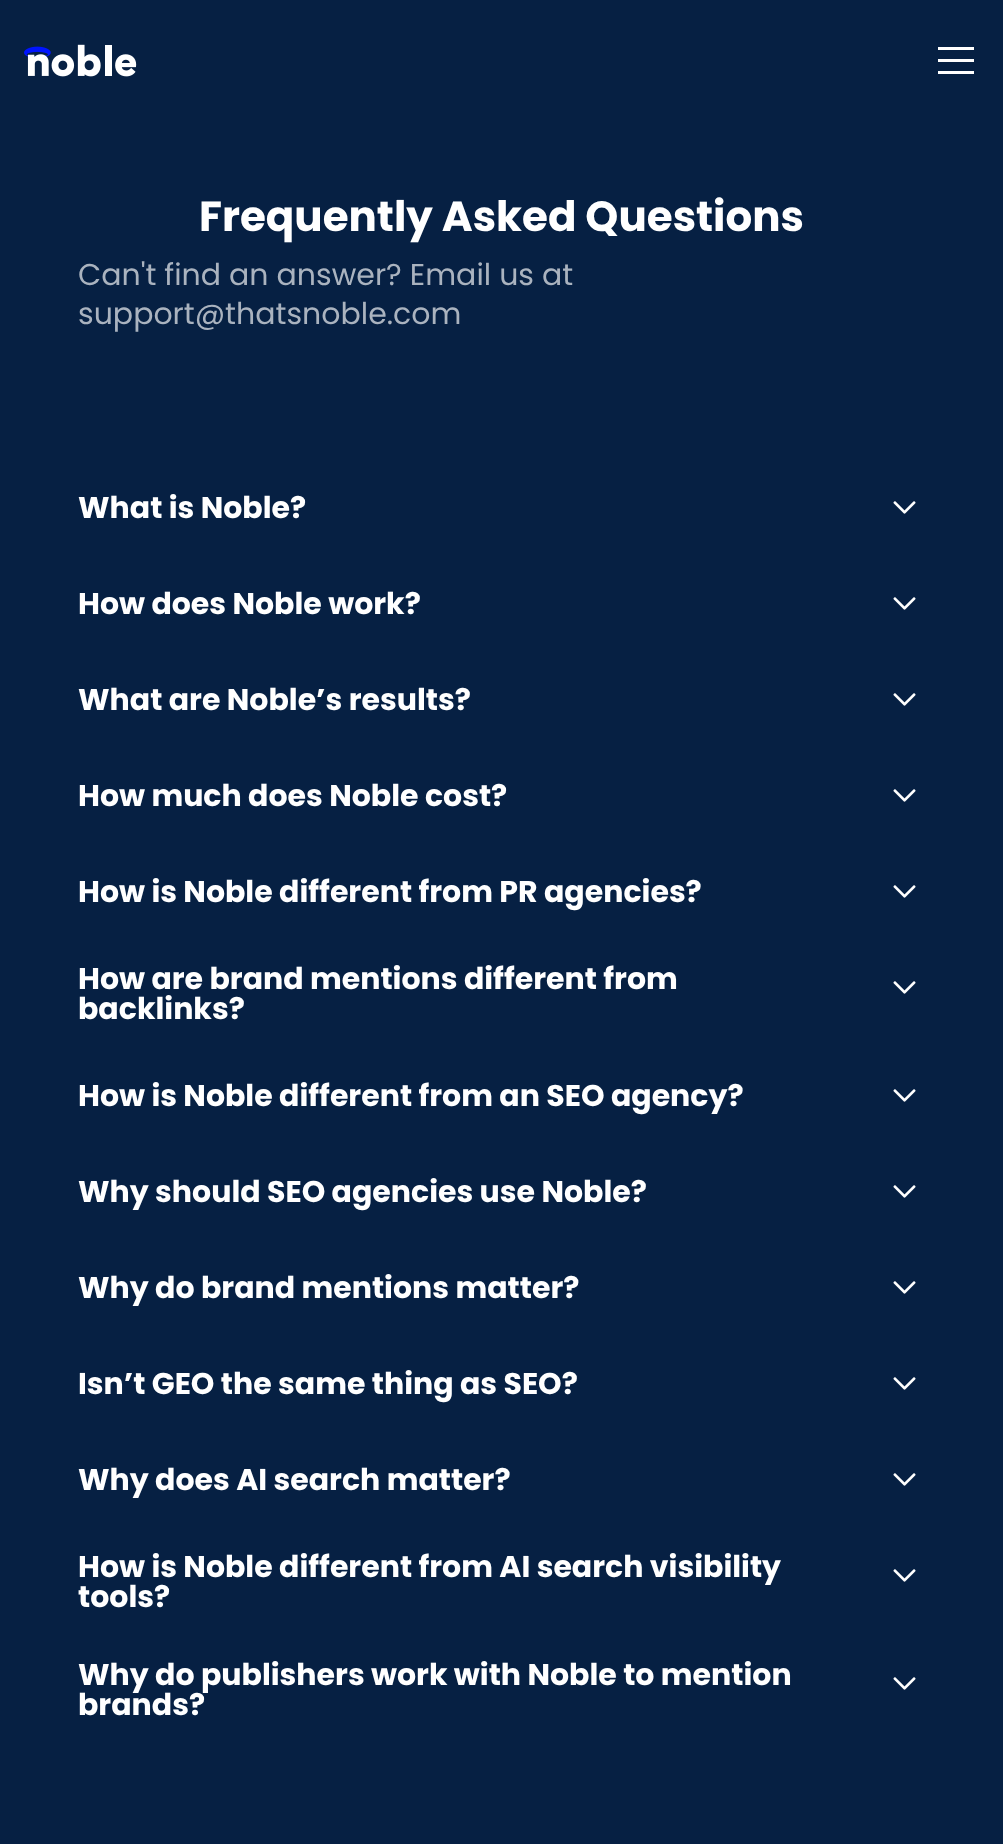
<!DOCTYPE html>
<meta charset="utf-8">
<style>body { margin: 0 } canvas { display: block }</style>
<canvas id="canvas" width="1003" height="1844"></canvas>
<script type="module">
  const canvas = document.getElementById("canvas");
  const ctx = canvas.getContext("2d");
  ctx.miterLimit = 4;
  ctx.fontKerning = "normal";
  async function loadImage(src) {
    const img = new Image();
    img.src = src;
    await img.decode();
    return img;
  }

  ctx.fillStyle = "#062043";
  ctx.fillRect(0, 0, 1003, 1844);
  ctx.drawImage(await loadImage("img1.png"), 24, 44, 113, 33);
  ctx.fillStyle = "#ffffff";
  ctx.fillRect(938, 47, 36, 3);
  ctx.fillRect(938, 59, 36, 3);
  ctx.fillRect(938, 71, 36, 3);
  ctx.font = "bold 42px Poppins";
  ctx.fillText("Frequently Asked Questions", 199, 231);
  ctx.font = "30px Poppins";
  ctx.fillStyle = "#aab3bf";
  ctx.fillText("Can't find an answer? Email us at", 78, 285);
  ctx.fillText("support@thatsnoble.com", 78, 324);
  ctx.font = "bold 30px Poppins";
  ctx.fillStyle = "#ffffff";
  ctx.fillText("What is Noble?", 78, 518);
  ctx.drawImage(await loadImage("img2.png"), 893, 501, 23, 13);
  ctx.fillText("How does Noble work?", 78, 614);
  ctx.drawImage(await loadImage("img2.png"), 893, 597, 23, 13);
  ctx.fillText("What are Noble’s results?", 78, 710);
  ctx.drawImage(await loadImage("img2.png"), 893, 693, 23, 13);
  ctx.fillText("How much does Noble cost?", 78, 806);
  ctx.drawImage(await loadImage("img2.png"), 893, 789, 23, 13);
  ctx.fillText("How is Noble different from PR agencies?", 78, 902);
  ctx.drawImage(await loadImage("img2.png"), 893, 885, 23, 13);
  ctx.fillText("How are brand mentions different from", 78, 989);
  ctx.fillText("backlinks?", 78, 1019);
  ctx.drawImage(await loadImage("img2.png"), 893, 981, 23, 13);
  ctx.fillText("How is Noble different from an SEO agency?", 78, 1106);
  ctx.drawImage(await loadImage("img2.png"), 893, 1089, 23, 13);
  ctx.fillText("Why should SEO agencies use Noble?", 78, 1202);
  ctx.drawImage(await loadImage("img2.png"), 893, 1185, 23, 13);
  ctx.fillText("Why do brand mentions matter?", 78, 1298);
  ctx.drawImage(await loadImage("img2.png"), 893, 1281, 23, 13);
  ctx.fillText("Isn’t GEO the same thing as SEO?", 78, 1394);
  ctx.drawImage(await loadImage("img2.png"), 893, 1377, 23, 13);
  ctx.fillText("Why does AI search matter?", 78, 1490);
  ctx.drawImage(await loadImage("img2.png"), 893, 1473, 23, 13);
  ctx.fillText("How is Noble different from AI search visibility", 78, 1577);
  ctx.fillText("tools?", 78, 1607);
  ctx.drawImage(await loadImage("img2.png"), 893, 1569, 23, 13);
  ctx.fillText("Why do publishers work with Noble to mention", 78, 1685);
  ctx.fillText("brands?", 78, 1715);
  ctx.drawImage(await loadImage("img2.png"), 893, 1677, 23, 13);
</script>
